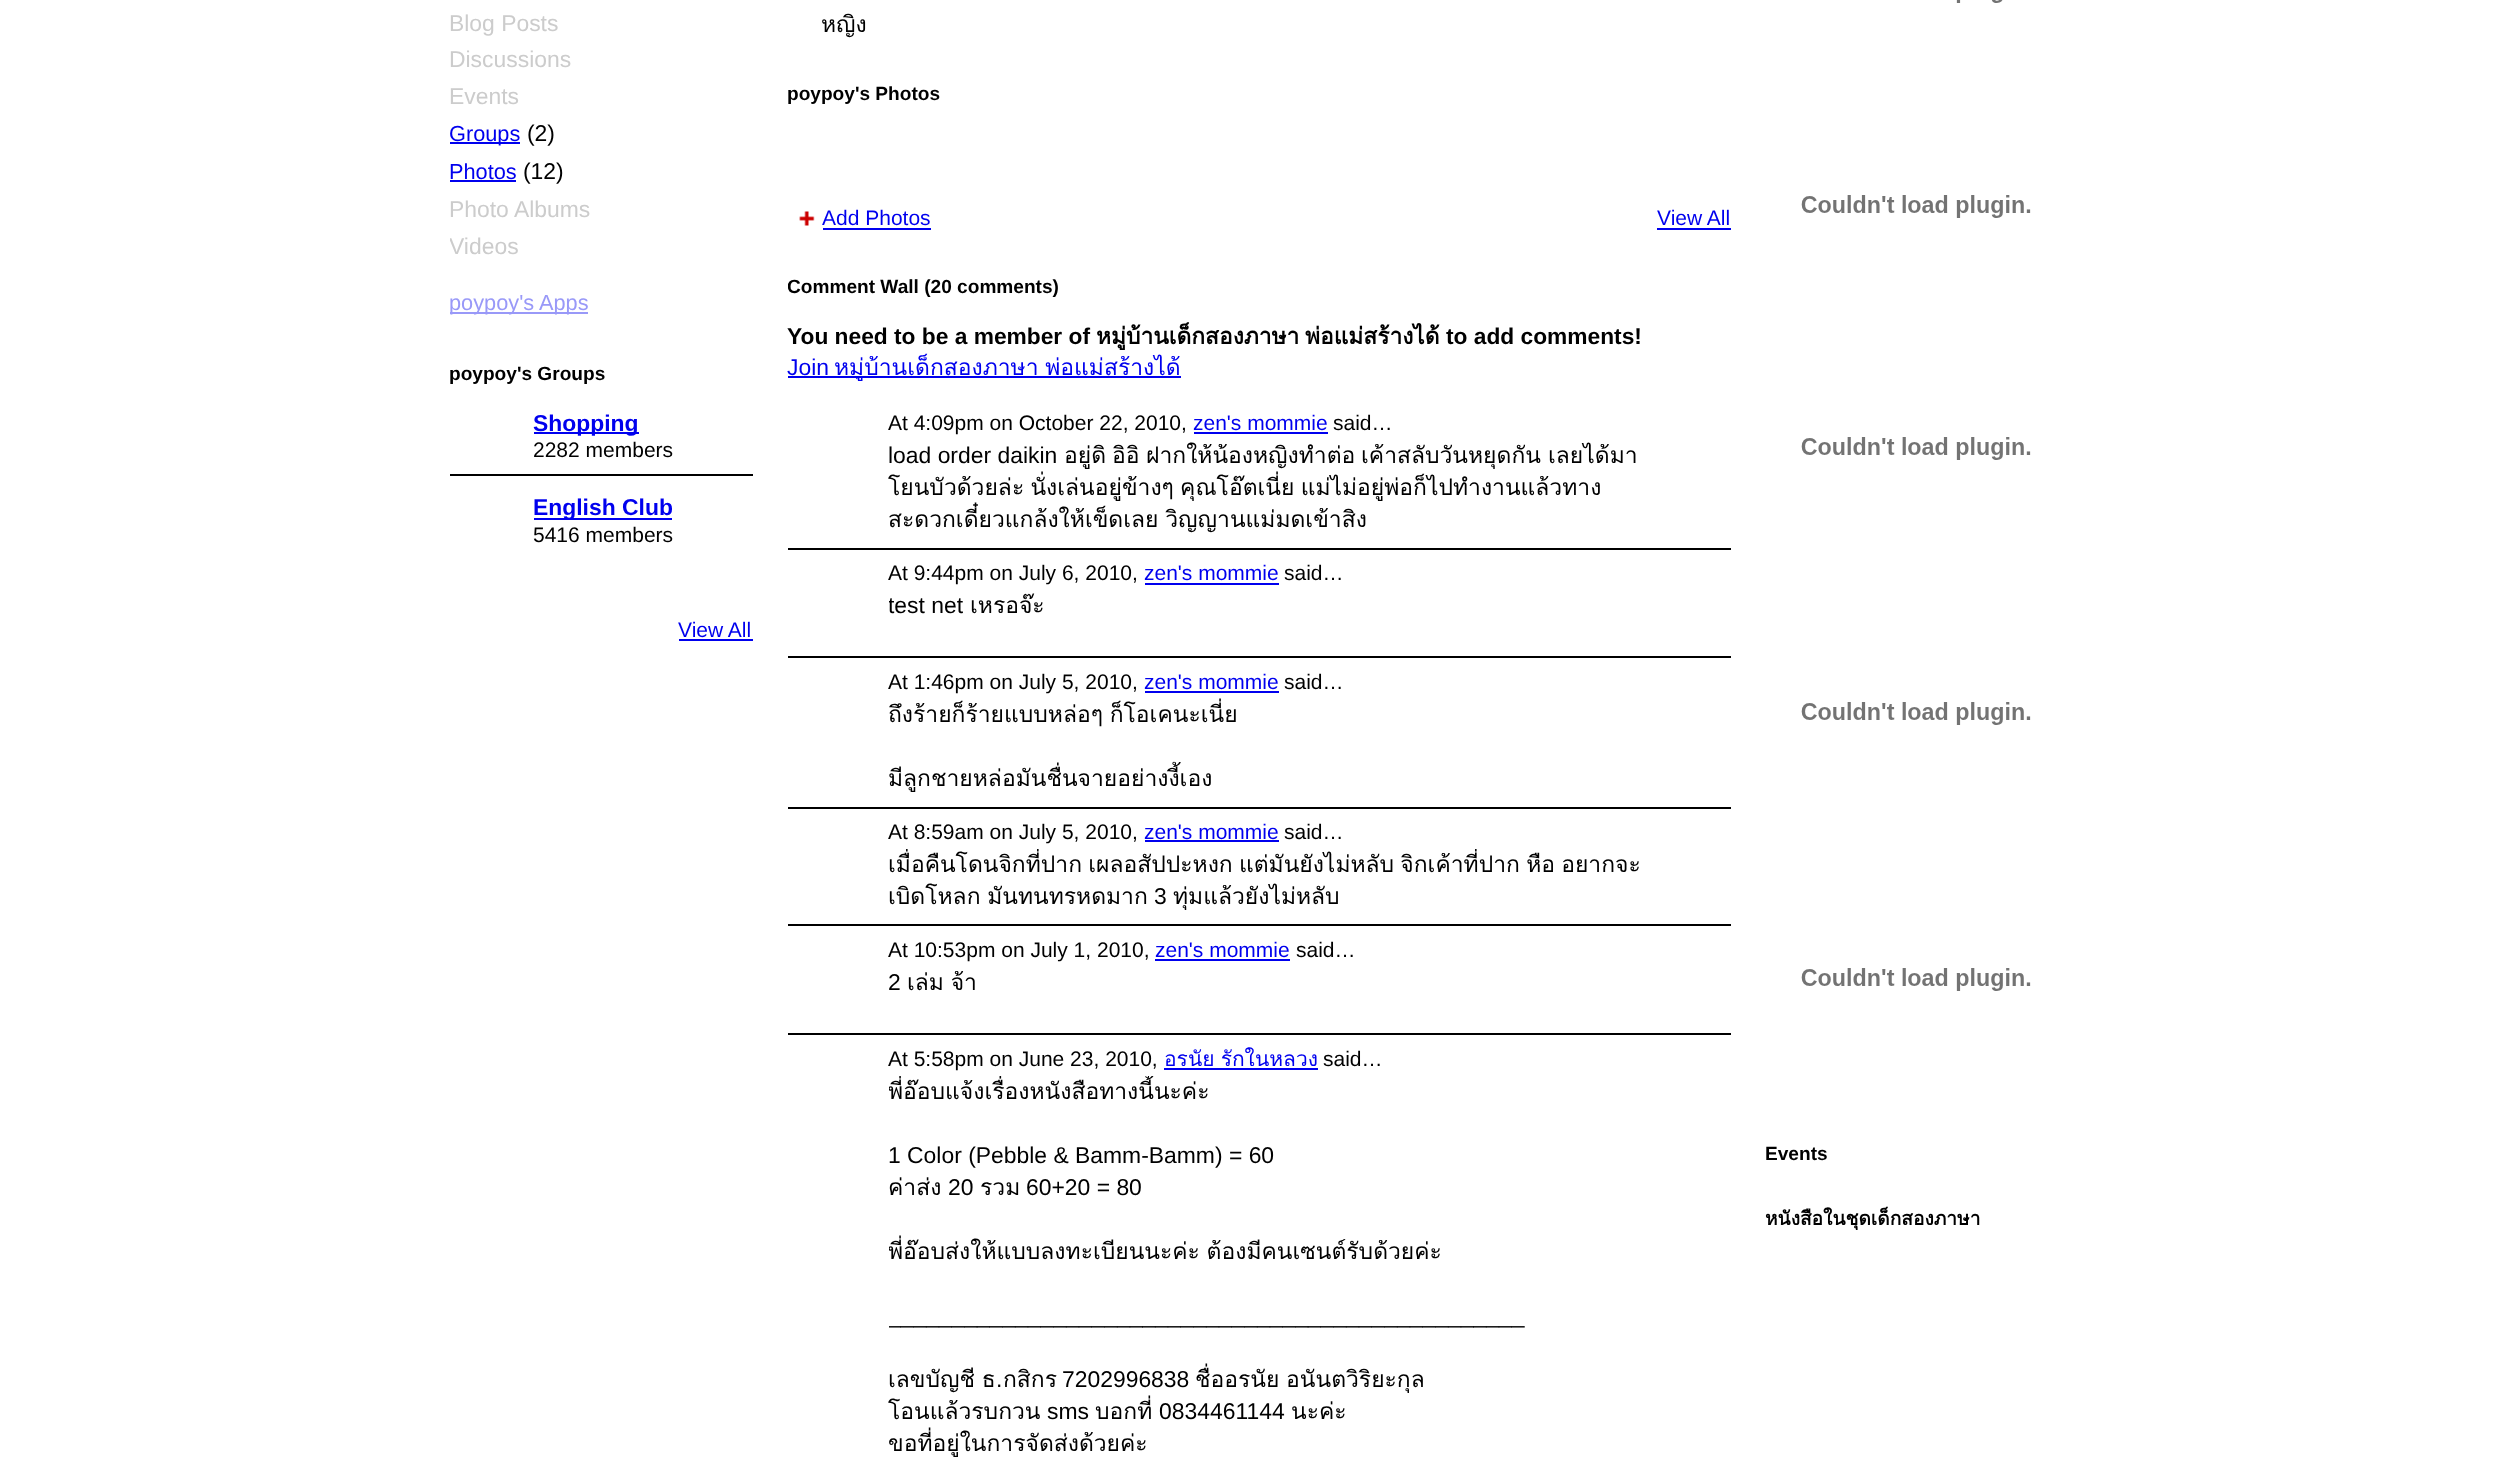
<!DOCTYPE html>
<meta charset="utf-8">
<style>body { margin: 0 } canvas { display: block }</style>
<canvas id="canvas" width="2515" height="1484"></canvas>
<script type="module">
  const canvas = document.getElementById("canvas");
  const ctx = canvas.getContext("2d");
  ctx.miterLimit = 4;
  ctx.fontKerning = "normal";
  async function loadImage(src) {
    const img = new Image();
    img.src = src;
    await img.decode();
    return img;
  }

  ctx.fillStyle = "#ffffff";
  ctx.fillRect(0, 0, 2515, 1484);
  ctx.font = "22.9px Liberation Sans";
  ctx.fillStyle = "#cccccc";
  ctx.fillText("Blog Posts", 449, 31);
  ctx.fillText("Discussions", 449, 67);
  ctx.fillText("Events", 449, 104);
  ctx.fillStyle = "#0000ee";
  ctx.fillRect(450, 142, 70, 2);
  ctx.font = "21.75px Liberation Sans";
  ctx.fillText("Groups", 449, 141);
  ctx.font = "22.9px Liberation Sans";
  ctx.fillStyle = "#000000";
  ctx.fillText("(2)", 527, 141);
  ctx.font = "21.75px Liberation Sans";
  ctx.fillStyle = "#0000ee";
  ctx.fillText("Photos", 449, 179);
  ctx.fillRect(450, 180, 66, 2);
  ctx.font = "22.9px Liberation Sans";
  ctx.fillStyle = "#000000";
  ctx.fillText("(12)", 523, 179);
  ctx.fillStyle = "#cccccc";
  ctx.fillText("Photo Albums", 449, 217);
  ctx.save();
  ctx.beginPath();
  ctx.rect(450, 233, 303, 28);
  ctx.clip();
  ctx.fillText("Videos", 449, 254);
  ctx.restore();
  ctx.fillStyle = "#9999f8";
  ctx.fillRect(450, 312, 138, 2);
  ctx.font = "21.75px Liberation Sans";
  ctx.fillText("poypoy's Apps", 449, 310);
  ctx.font = "bold 19.1px Liberation Sans";
  ctx.fillStyle = "#000000";
  ctx.fillText("poypoy's Groups", 449, 380);
  ctx.fillRect(450, 474, 303, 2);
  ctx.fillStyle = "#0000ee";
  ctx.fillRect(534, 432, 105, 2);
  ctx.font = "bold 22.9px Liberation Sans";
  ctx.fillText("Shopping", 533, 431);
  ctx.font = "21px Liberation Sans";
  ctx.fillStyle = "#000000";
  ctx.fillText("2282 members", 533, 457);
  ctx.fillStyle = "#0000ee";
  ctx.fillRect(534, 518, 138, 2);
  ctx.font = "bold 22.9px Liberation Sans";
  ctx.fillText("English Club", 533, 515);
  ctx.font = "21px Liberation Sans";
  ctx.fillStyle = "#000000";
  ctx.fillText("5416 members", 533, 542);
  ctx.fillStyle = "#0000ee";
  ctx.fillText("View All", 678, 637);
  ctx.fillRect(679, 639, 74, 2);
  ctx.font = "22.9px Loma";
  ctx.fillStyle = "#000000";
  ctx.fillText("หญิง", 821, 32);
  ctx.font = "bold 19.1px Liberation Sans";
  ctx.fillText("poypoy's Photos", 787, 100);
  ctx.drawImage(await loadImage("img1.png"), 799, 211, 16, 15);
  ctx.font = "21px Liberation Sans";
  ctx.fillStyle = "#0000ee";
  ctx.fillText("Add Photos", 822, 225);
  ctx.fillRect(823, 228, 108, 2);
  ctx.fillText("View All", 1657, 225);
  ctx.fillRect(1657, 228, 74, 2);
  ctx.save();
  ctx.beginPath();
  ctx.rect(788, 273, 271, 25);
  ctx.clip();
  ctx.font = "bold 19.1px Liberation Sans";
  ctx.fillStyle = "#000000";
  ctx.fillText("Comment Wall (20 comments)", 787, 293);
  ctx.restore();
  ctx.font = "bold 22.75px Liberation Sans";
  ctx.fillStyle = "#000000";
  ctx.fillText("You need to be a member of", 787, 344);
  ctx.font = "bold 22.75px Loma";
  ctx.fillText("หมู่บ้านเด็กสองภาษา", 1096, 344);
  ctx.fillText("พ่อแม่สร้างได้", 1305, 344);
  ctx.font = "bold 22.75px Liberation Sans";
  ctx.fillText("to add comments!", 1446, 344);
  ctx.font = "22.9px Liberation Sans";
  ctx.fillStyle = "#0000ee";
  ctx.fillText("Join", 787, 375);
  ctx.fillRect(788, 376, 393, 2);
  ctx.wordSpacing = "-1px";
  ctx.font = "22.9px Loma";
  ctx.fillText("หมู่บ้านเด็กสองภาษา พ่อแม่สร้างได้", 834, 375);
  ctx.fillStyle = "#000000";
  ctx.fillRect(788, 548, 943, 2);
  ctx.wordSpacing = "0px";
  ctx.font = "21px Liberation Sans";
  ctx.fillText("At 4:09pm on October 22, 2010,", 888, 430);
  ctx.fillStyle = "#0000ee";
  ctx.fillText("zen's mommie", 1193, 430);
  ctx.fillRect(1194, 432, 134, 2);
  ctx.fillStyle = "#000000";
  ctx.fillText("said…", 1333, 430);
  ctx.font = "22.9px Liberation Sans";
  ctx.fillText("load order daikin", 888, 463);
  ctx.font = "22.9px Loma";
  ctx.fillText("อยู่ดิ", 1064, 463);
  ctx.fillText("อิอิ", 1112, 463);
  ctx.fillText("ฝากให้น้องหญิงทำต่อ", 1146, 463);
  ctx.fillText("เค้าสลับวันหยุดกัน", 1361, 463);
  ctx.fillText("เลยได้มา", 1548, 463);
  ctx.wordSpacing = "-1.5px";
  ctx.fillText("โยนบัวด้วยล่ะ นั่งเล่นอยู่ข้างๆ คุณโอ๊ตเนี่ย แม่ไม่อยู่พ่อก็ไปทำงานแล้วทาง", 888, 495);
  ctx.wordSpacing = "-1px";
  ctx.fillText("สะดวกเดี๋ยวแกล้งให้เข็ดเลย วิญญานแม่มดเข้าสิง", 888, 527);
  ctx.fillRect(788, 656, 943, 2);
  ctx.wordSpacing = "0px";
  ctx.font = "21px Liberation Sans";
  ctx.fillText("At 9:44pm on July 6, 2010,", 888, 580);
  ctx.fillStyle = "#0000ee";
  ctx.fillText("zen's mommie", 1144, 580);
  ctx.fillRect(1145, 583, 134, 2);
  ctx.fillStyle = "#000000";
  ctx.fillText("said…", 1284, 580);
  ctx.save();
  ctx.beginPath();
  ctx.rect(889, 590, 781, 33);
  ctx.clip();
  ctx.font = "22.9px Liberation Sans";
  ctx.fillText("test net", 888, 613);
  ctx.restore();
  ctx.font = "22.9px Loma";
  ctx.fillText("เหรอจ๊ะ", 970, 613);
  ctx.fillRect(788, 807, 943, 2);
  ctx.font = "21px Liberation Sans";
  ctx.fillText("At 1:46pm on July 5, 2010,", 888, 689);
  ctx.fillStyle = "#0000ee";
  ctx.fillText("zen's mommie", 1144, 689);
  ctx.fillRect(1145, 691, 134, 2);
  ctx.fillStyle = "#000000";
  ctx.fillText("said…", 1284, 689);
  ctx.save();
  ctx.beginPath();
  ctx.rect(889, 698, 781, 97);
  ctx.clip();
  ctx.wordSpacing = "-1px";
  ctx.font = "22.9px Loma";
  ctx.fillText("ถึงร้ายก็ร้ายแบบหล่อๆ ก็โอเคนะเนี่ย", 888, 722);
  ctx.wordSpacing = "0px";
  ctx.fillText("มีลูกชายหล่อมันชื่นจายอย่างงี้เอง", 888, 786);
  ctx.restore();
  ctx.fillRect(788, 924, 943, 2);
  ctx.fillText("At 8:59am on July 5, 2010,", 888, 839);
  ctx.fillStyle = "#0000ee";
  ctx.fillText("zen's mommie", 1144, 839);
  ctx.fillRect(1145, 840, 134, 2);
  ctx.fillStyle = "#000000";
  ctx.fillText("said…", 1284, 839);
  ctx.save();
  ctx.beginPath();
  ctx.rect(889, 849, 781, 65);
  ctx.clip();
  ctx.wordSpacing = "-1.5px";
  ctx.font = "22.9px Loma";
  ctx.fillText("เมื่อคืนโดนจิกที่ปาก เผลอสัปปะหงก แต่มันยังไม่หลับ จิกเค้าที่ปาก หือ อยากจะ", 888, 872);
  ctx.wordSpacing = "-1px";
  ctx.fillText("เบิดโหลก มันทนทรหดมาก", 888, 904);
  ctx.restore();
  ctx.font = "22.9px Liberation Sans";
  ctx.fillText("3", 1154, 904);
  ctx.font = "22.9px Loma";
  ctx.fillText("ทุ่มแล้วยังไม่หลับ", 1173, 904);
  ctx.fillRect(788, 1033, 943, 2);
  ctx.font = "21px Liberation Sans";
  ctx.fillText("At 10:53pm on July 1, 2010,", 888, 957);
  ctx.fillStyle = "#0000ee";
  ctx.fillText("zen's mommie", 1155, 957);
  ctx.fillRect(1155, 959, 135, 2);
  ctx.fillStyle = "#000000";
  ctx.fillText("said…", 1296, 957);
  ctx.font = "22.9px Liberation Sans";
  ctx.fillText("2", 888, 990);
  ctx.wordSpacing = "-1px";
  ctx.font = "22.9px Loma";
  ctx.fillText("เล่ม จ้า", 907, 990);
  ctx.wordSpacing = "0px";
  ctx.font = "21px Liberation Sans";
  ctx.fillText("At 5:58pm on June 23, 2010,", 888, 1066);
  ctx.wordSpacing = "-1px";
  ctx.font = "21px Loma";
  ctx.fillStyle = "#0000ee";
  ctx.fillText("อรนัย รักในหลวง", 1164, 1066);
  ctx.fillRect(1164, 1068, 154, 2);
  ctx.wordSpacing = "0px";
  ctx.font = "21px Liberation Sans";
  ctx.fillStyle = "#000000";
  ctx.fillText("said…", 1323, 1066);
  ctx.save();
  ctx.beginPath();
  ctx.rect(889, 1076, 781, 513);
  ctx.clip();
  ctx.font = "22.9px Loma";
  ctx.fillText("พี่อ๊อบแจ้งเรื่องหนังสือทางนี้นะค่ะ", 888, 1099);
  ctx.restore();
  ctx.font = "22.9px Liberation Sans";
  ctx.fillText("1 Color (Pebble & Bamm-Bamm) = 60", 888, 1163);
  ctx.save();
  ctx.beginPath();
  ctx.rect(889, 1076, 781, 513);
  ctx.clip();
  ctx.font = "22.9px Loma";
  ctx.fillText("ค่าส่ง", 888, 1195);
  ctx.restore();
  ctx.fillText("20", 948, 1195);
  ctx.font = "22.9px Loma";
  ctx.fillText("รวม", 980, 1195);
  ctx.font = "22.9px Liberation Sans";
  ctx.fillText("60+20 = 80", 1026, 1195);
  ctx.save();
  ctx.beginPath();
  ctx.rect(889, 1076, 781, 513);
  ctx.clip();
  ctx.wordSpacing = "-1px";
  ctx.font = "22.9px Loma";
  ctx.fillText("พี่อ๊อบส่งให้แบบลงทะเบียนนะค่ะ ต้องมีคนเซนต์รับด้วยค่ะ", 888, 1259);
  ctx.wordSpacing = "0px";
  ctx.font = "22.9px Liberation Sans";
  ctx.fillText("__________________________________________________", 888, 1323);
  ctx.restore();
  ctx.wordSpacing = "-1px";
  ctx.font = "22.9px Loma";
  ctx.fillText("เลขบัญชี ธ", 888, 1387);
  ctx.wordSpacing = "0px";
  ctx.font = "22.9px Liberation Sans";
  ctx.fillText(".", 996, 1387);
  ctx.font = "22.9px Loma";
  ctx.fillText("กสิกร", 1003, 1387);
  ctx.font = "22.9px Liberation Sans";
  ctx.fillText("7202996838", 1062, 1387);
  ctx.wordSpacing = "-1px";
  ctx.font = "22.9px Loma";
  ctx.fillText("ชื่ออรนัย อนันตวิริยะกุล", 1195, 1387);
  ctx.wordSpacing = "0px";
  ctx.fillText("โอนแล้วรบกวน", 888, 1419);
  ctx.font = "22.9px Liberation Sans";
  ctx.fillText("sms", 1047, 1419);
  ctx.font = "22.9px Loma";
  ctx.fillText("บอกที่", 1095, 1419);
  ctx.font = "22.9px Liberation Sans";
  ctx.fillText("0834461144", 1159, 1419);
  ctx.font = "22.9px Loma";
  ctx.fillText("นะค่ะ", 1291, 1419);
  ctx.fillText("ขอที่อยู่ในการจัดส่งด้วยค่ะ", 888, 1451);
  ctx.drawImage(await loadImage("img2.png"), 1956, 0, 47, 3);
  ctx.drawImage(await loadImage("img3.png"), 1801, 195, 230, 23);
  ctx.drawImage(await loadImage("img3.png"), 1801, 437, 230, 23);
  ctx.drawImage(await loadImage("img3.png"), 1801, 702, 230, 23);
  ctx.drawImage(await loadImage("img3.png"), 1801, 968, 230, 23);
  ctx.font = "bold 19.1px Liberation Sans";
  ctx.fillText("Events", 1765, 1160);
  ctx.font = "bold 19.1px Loma";
  ctx.fillText("หนังสือในชุดเด็กสองภาษา", 1765, 1225);
</script>
